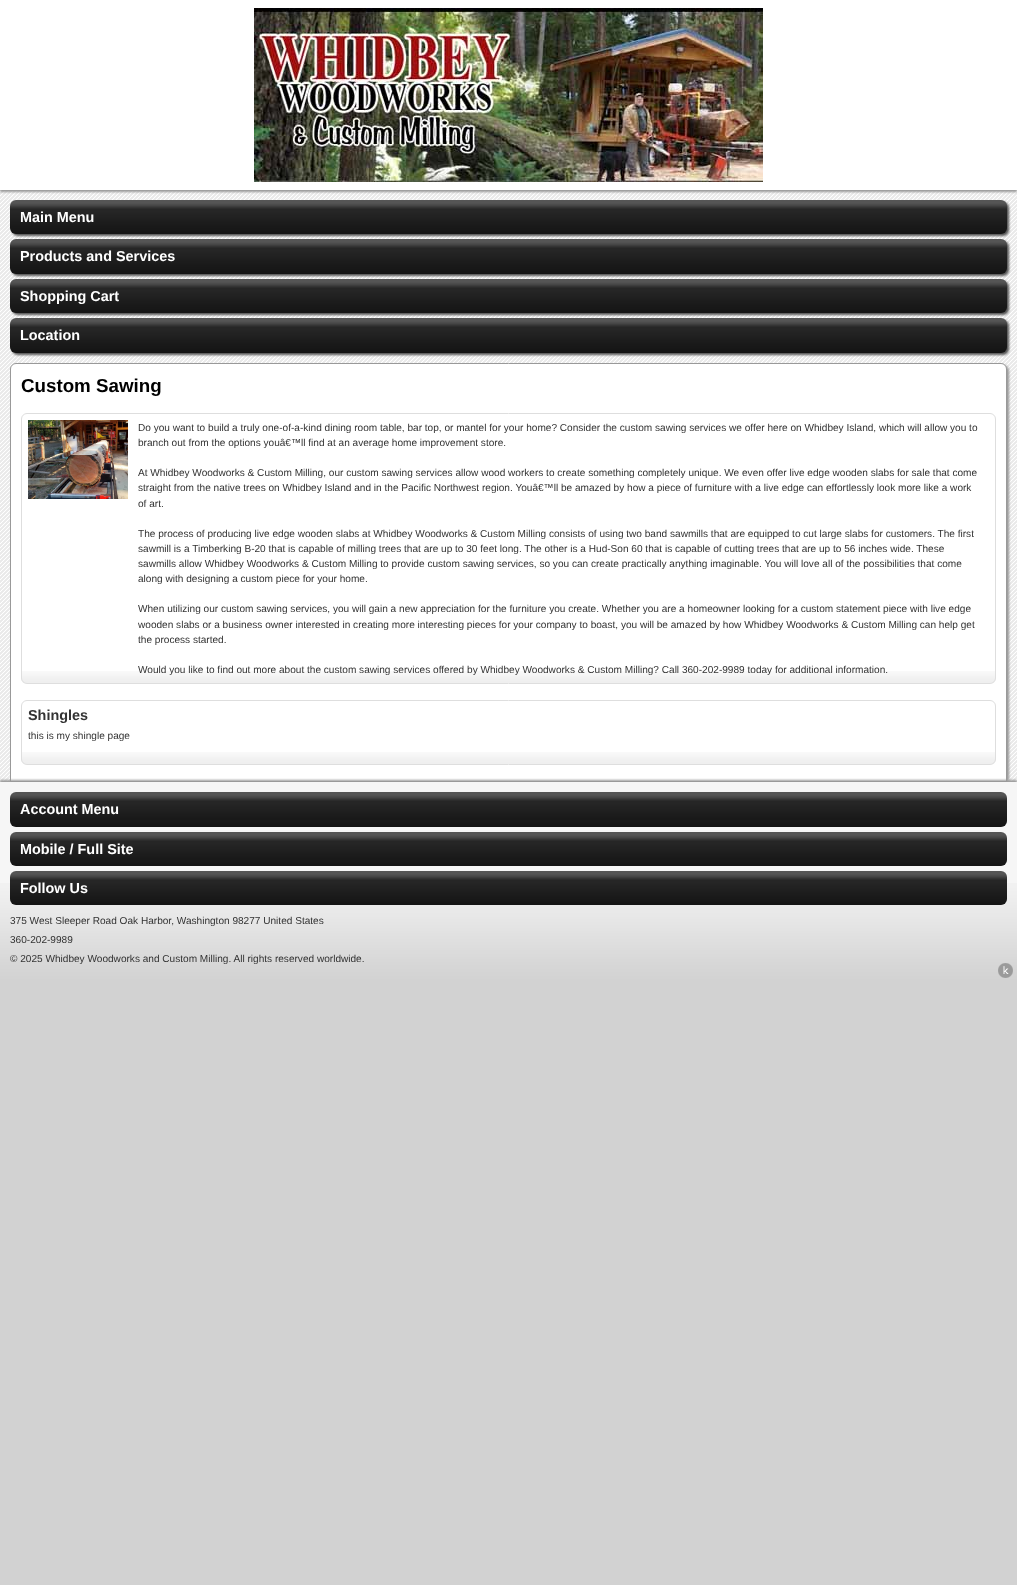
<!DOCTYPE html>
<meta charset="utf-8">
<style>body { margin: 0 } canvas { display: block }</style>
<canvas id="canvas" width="1017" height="1585"></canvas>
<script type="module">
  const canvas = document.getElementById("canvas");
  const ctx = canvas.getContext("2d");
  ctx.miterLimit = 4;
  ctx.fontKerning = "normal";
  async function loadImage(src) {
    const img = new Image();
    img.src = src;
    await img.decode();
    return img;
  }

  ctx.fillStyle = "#d2d2d2";
  ctx.fillRect(0, 0, 1017, 1585);
  ctx.drawImage(await loadImage("img1.png"), 0, 190, 1017, 592);
  ctx.fillStyle = "#999999";
  ctx.filter = "blur(1px)";
  ctx.beginPath();
  ctx.rect(0, 2, 1017, 190);
  ctx.fill();
  ctx.filter = "none";
  ctx.fillStyle = "#ffffff";
  ctx.fillRect(0, 0, 1017, 190);
  ctx.drawImage(await loadImage("img2.png"), 254, 8, 509, 174);
  ctx.fillStyle = "#555555";
  ctx.filter = "blur(1px)";
  ctx.beginPath();
  ctx.roundRect(12, 202, 997, 34, 6);
  ctx.fill();
  ctx.filter = "none";
  ctx.drawImage(await loadImage("img3.png"), 10, 200, 997, 34);
  ctx.font = "bold 14.4px Liberation Sans";
  ctx.fillStyle = "#ffffff";
  ctx.fillText("Main Menu", 20, 222);
  ctx.fillStyle = "#555555";
  ctx.filter = "blur(1px)";
  ctx.beginPath();
  ctx.roundRect(12, 241, 997, 35, 6);
  ctx.fill();
  ctx.filter = "none";
  ctx.drawImage(await loadImage("img4.png"), 10, 239, 997, 35);
  ctx.fillStyle = "#ffffff";
  ctx.fillText("Products and Services", 20, 261);
  ctx.fillStyle = "#555555";
  ctx.filter = "blur(1px)";
  ctx.beginPath();
  ctx.roundRect(12, 281, 997, 34, 6);
  ctx.fill();
  ctx.filter = "none";
  ctx.drawImage(await loadImage("img5.png"), 10, 279, 997, 34);
  ctx.fillStyle = "#ffffff";
  ctx.fillText("Shopping Cart", 20, 301);
  ctx.fillStyle = "#555555";
  ctx.filter = "blur(1px)";
  ctx.beginPath();
  ctx.roundRect(12, 320, 997, 35, 6);
  ctx.fill();
  ctx.filter = "none";
  ctx.drawImage(await loadImage("img6.png"), 10, 318, 997, 35);
  ctx.fillStyle = "#ffffff";
  ctx.fillText("Location", 20, 340);
  ctx.fillStyle = "#999999";
  ctx.filter = "blur(1px)";
  ctx.beginPath();
  ctx.roundRect(12, 365, 997, 419, 6);
  ctx.fill();
  ctx.filter = "none";
  ctx.fillStyle = "#ffffff";
  ctx.beginPath();
  ctx.roundRect(10.5, 363.5, 996, 418, [5.5, 5.5, 0, 0]);
  ctx.fill();
  ctx.strokeStyle = "#999999";
  ctx.stroke();
  ctx.font = "bold 18.75px Liberation Sans";
  ctx.fillStyle = "#000000";
  ctx.fillText("Custom Sawing", 21, 392);
  ctx.drawImage(await loadImage("img7.png"), 21, 671, 975, 12);
  ctx.beginPath();
  ctx.roundRect(21.5, 413.5, 974, 270, 5.5);
  ctx.strokeStyle = "#dedede";
  ctx.stroke();
  ctx.drawImage(await loadImage("img8.png"), 28, 420, 100, 79);
  ctx.font = "10.08px Liberation Sans";
  ctx.fillStyle = "#333333";
  ctx.fillText("Do you want to build a truly one-of-a-kind dining room table, bar top, or mantel for your home? Consider the custom sawing services we offer here on Whidbey Island, which will allow you to", 138, 431);
  ctx.fillText("branch out from the options youâ€™ll find at an average home improvement store.", 138, 446);
  ctx.fillText("At Whidbey Woodworks & Custom Milling, our custom sawing services allow wood workers to create something completely unique. We even offer live edge wooden slabs for sale that come", 138, 476);
  ctx.fillText("straight from the native trees on Whidbey Island and in the Pacific Northwest region. Youâ€™ll be amazed by how a piece of furniture with a live edge can effortlessly look more like a work", 138, 491);
  ctx.fillText("of art.", 138, 507);
  ctx.fillText("The process of producing live edge wooden slabs at Whidbey Woodworks & Custom Milling consists of using two band sawmills that are equipped to cut large slabs for customers. The first", 138, 537);
  ctx.fillText("sawmill is a Timberking B-20 that is capable of milling trees that are up to 30 feet long. The other is a Hud-Son 60 that is capable of cutting trees that are up to 56 inches wide. These", 138, 552);
  ctx.fillText("sawmills allow Whidbey Woodworks & Custom Milling to provide custom sawing services, so you can create practically anything imaginable. You will love all of the possibilities that come", 138, 567);
  ctx.fillText("along with designing a custom piece for your home.", 138, 582);
  ctx.fillText("When utilizing our custom sawing services, you will gain a new appreciation for the furniture you create. Whether you are a homeowner looking for a custom statement piece with live edge", 138, 612);
  ctx.fillText("wooden slabs or a business owner interested in creating more interesting pieces for your company to boast, you will be amazed by how Whidbey Woodworks & Custom Milling can help get", 138, 628);
  ctx.fillText("the process started.", 138, 643);
  ctx.fillText("Would you like to find out more about the custom sawing services offered by Whidbey Woodworks & Custom Milling? Call 360-202-9989 today for additional information.", 138, 673);
  ctx.drawImage(await loadImage("img9.png"), 21, 752, 975, 12);
  ctx.beginPath();
  ctx.roundRect(21.5, 700.5, 974, 64, 5.5);
  ctx.stroke();
  ctx.font = "bold 14.4px Liberation Sans";
  ctx.fillText("Shingles", 28, 720);
  ctx.font = "10.08px Liberation Sans";
  ctx.fillText("this is my shingle page", 28, 739);
  ctx.fillStyle = "#999999";
  ctx.filter = "blur(1px)";
  ctx.beginPath();
  ctx.rect(0, 780, 1017, 200);
  ctx.fill();
  ctx.filter = "none";
  ctx.fillStyle = "#f6f6f6";
  ctx.fillRect(0, 782, 1017, 101);
  ctx.drawImage(await loadImage("img10.png"), 0, 883, 1017, 99);
  ctx.drawImage(await loadImage("img11.png"), 10, 792, 997, 35);
  ctx.font = "bold 14.4px Liberation Sans";
  ctx.fillStyle = "#ffffff";
  ctx.fillText("Account Menu", 20, 814);
  ctx.drawImage(await loadImage("img12.png"), 10, 832, 997, 34);
  ctx.fillText("Mobile / Full Site", 20, 854);
  ctx.drawImage(await loadImage("img13.png"), 10, 871, 997, 34);
  ctx.fillText("Follow Us", 20, 893);
  ctx.font = "10.08px Liberation Sans";
  ctx.fillStyle = "#333333";
  ctx.fillText("375 West Sleeper Road Oak Harbor, Washington 98277 United States", 10, 924);
  ctx.fillText("360-202-9989", 10, 943);
  ctx.fillText("© 2025 Whidbey Woodworks and Custom Milling. All rights reserved worldwide.", 10, 962);
  ctx.drawImage(await loadImage("img14.png"), 998, 963, 15, 15);
</script>
